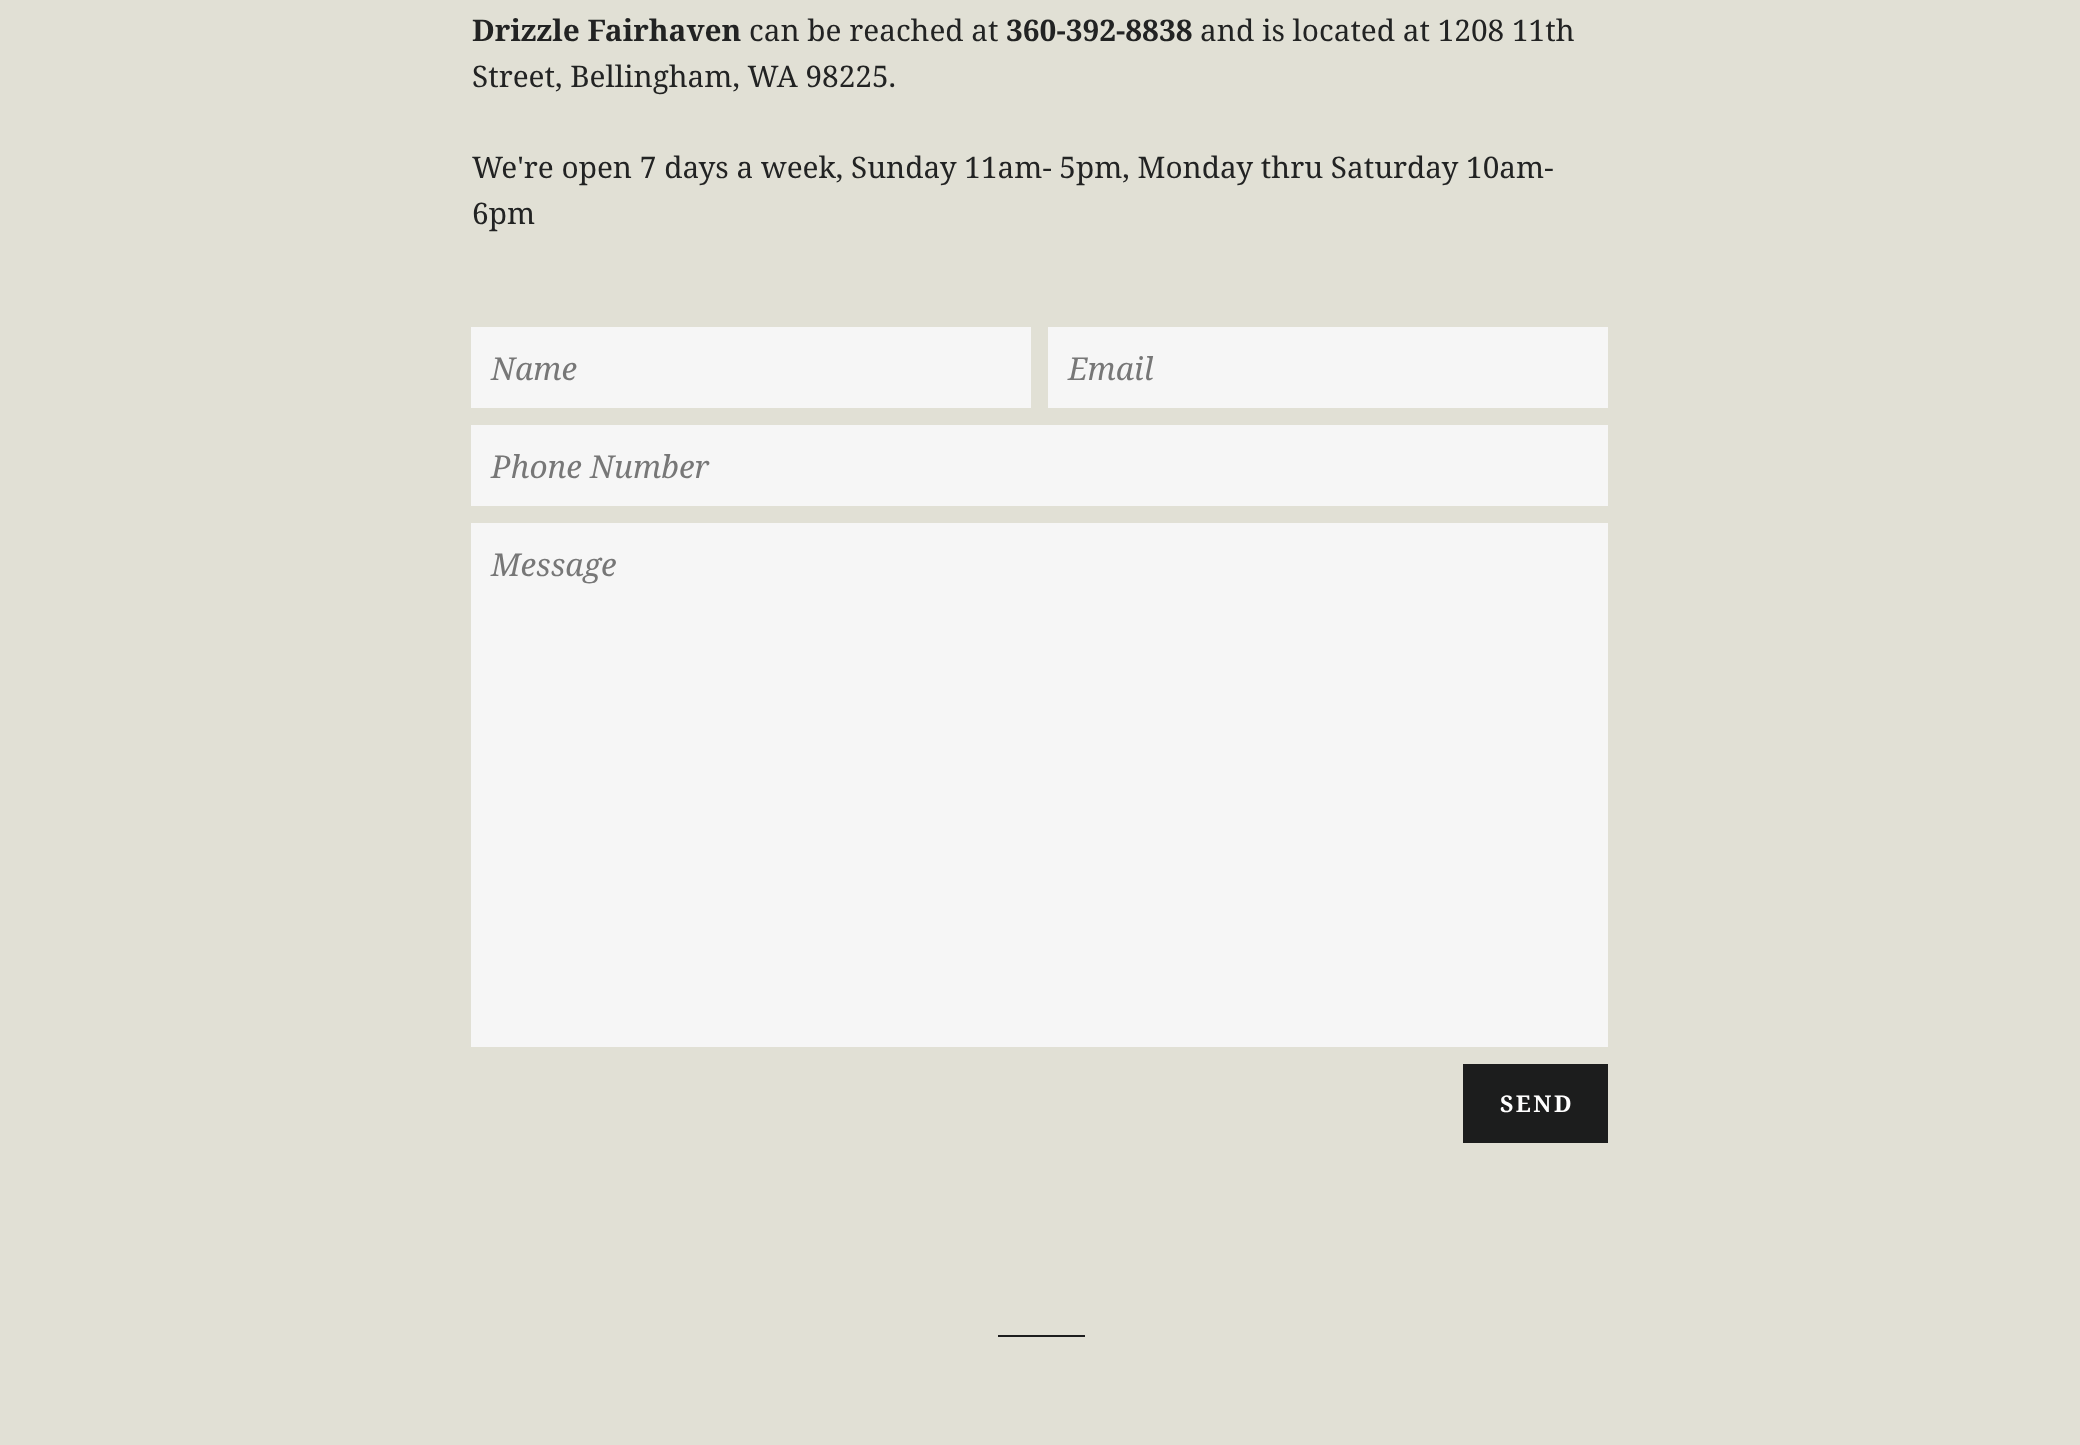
<!DOCTYPE html>
<meta charset="utf-8">
<style>body { margin: 0 } canvas { display: block }</style>
<canvas id="canvas" width="2080" height="1445"></canvas>
<script type="module">
  const canvas = document.getElementById("canvas");
  const ctx = canvas.getContext("2d");
  ctx.miterLimit = 4;
  ctx.fontKerning = "normal";

  ctx.fillStyle = "#e1e0d5";
  ctx.fillRect(0, 0, 2080, 1445);
  ctx.font = "bold 29.75px Noto Serif";
  ctx.fillStyle = "#222323";
  ctx.fillText("Drizzle Fairhaven", 472, 41);
  ctx.font = "29.75px Noto Serif";
  ctx.fillText("can be reached at", 749, 41);
  ctx.font = "bold 29.75px Noto Serif";
  ctx.fillText("360-392-8838", 1006, 41);
  ctx.font = "29.75px Noto Serif";
  ctx.fillText("and is located at 1208 11th", 1200, 41);
  ctx.fillText("Street, Bellingham, WA 98225.", 472, 87);
  ctx.fillText("We're open 7 days a week, Sunday 11am- 5pm, Monday thru Saturday 10am-", 472, 178);
  ctx.fillText("6pm", 472, 224);
  ctx.fillStyle = "#f6f6f6";
  ctx.fillRect(471, 327, 560, 81);
  ctx.font = "italic 31.5px Noto Serif";
  ctx.fillStyle = "#777777";
  ctx.fillText("Name", 491, 380);
  ctx.fillStyle = "#f6f6f6";
  ctx.fillRect(1048, 327, 560, 81);
  ctx.fillStyle = "#777777";
  ctx.fillText("Email", 1068, 380);
  ctx.fillStyle = "#f6f6f6";
  ctx.fillRect(471, 425, 1137, 81);
  ctx.fillStyle = "#777777";
  ctx.fillText("Phone Number", 491, 478);
  ctx.fillStyle = "#f6f6f6";
  ctx.fillRect(471, 523, 1137, 524);
  ctx.fillStyle = "#777777";
  ctx.fillText("Message", 491, 576);
  ctx.fillStyle = "#1c1d1d";
  ctx.fillRect(1463, 1064, 145, 79);
  ctx.letterSpacing = "2.5px";
  ctx.font = "bold 23px Noto Serif";
  ctx.fillStyle = "#ffffff";
  ctx.fillText("SEND", 1500, 1112);
  ctx.fillStyle = "#1c1d1d";
  ctx.fillRect(998, 1335, 87, 2);
</script>
